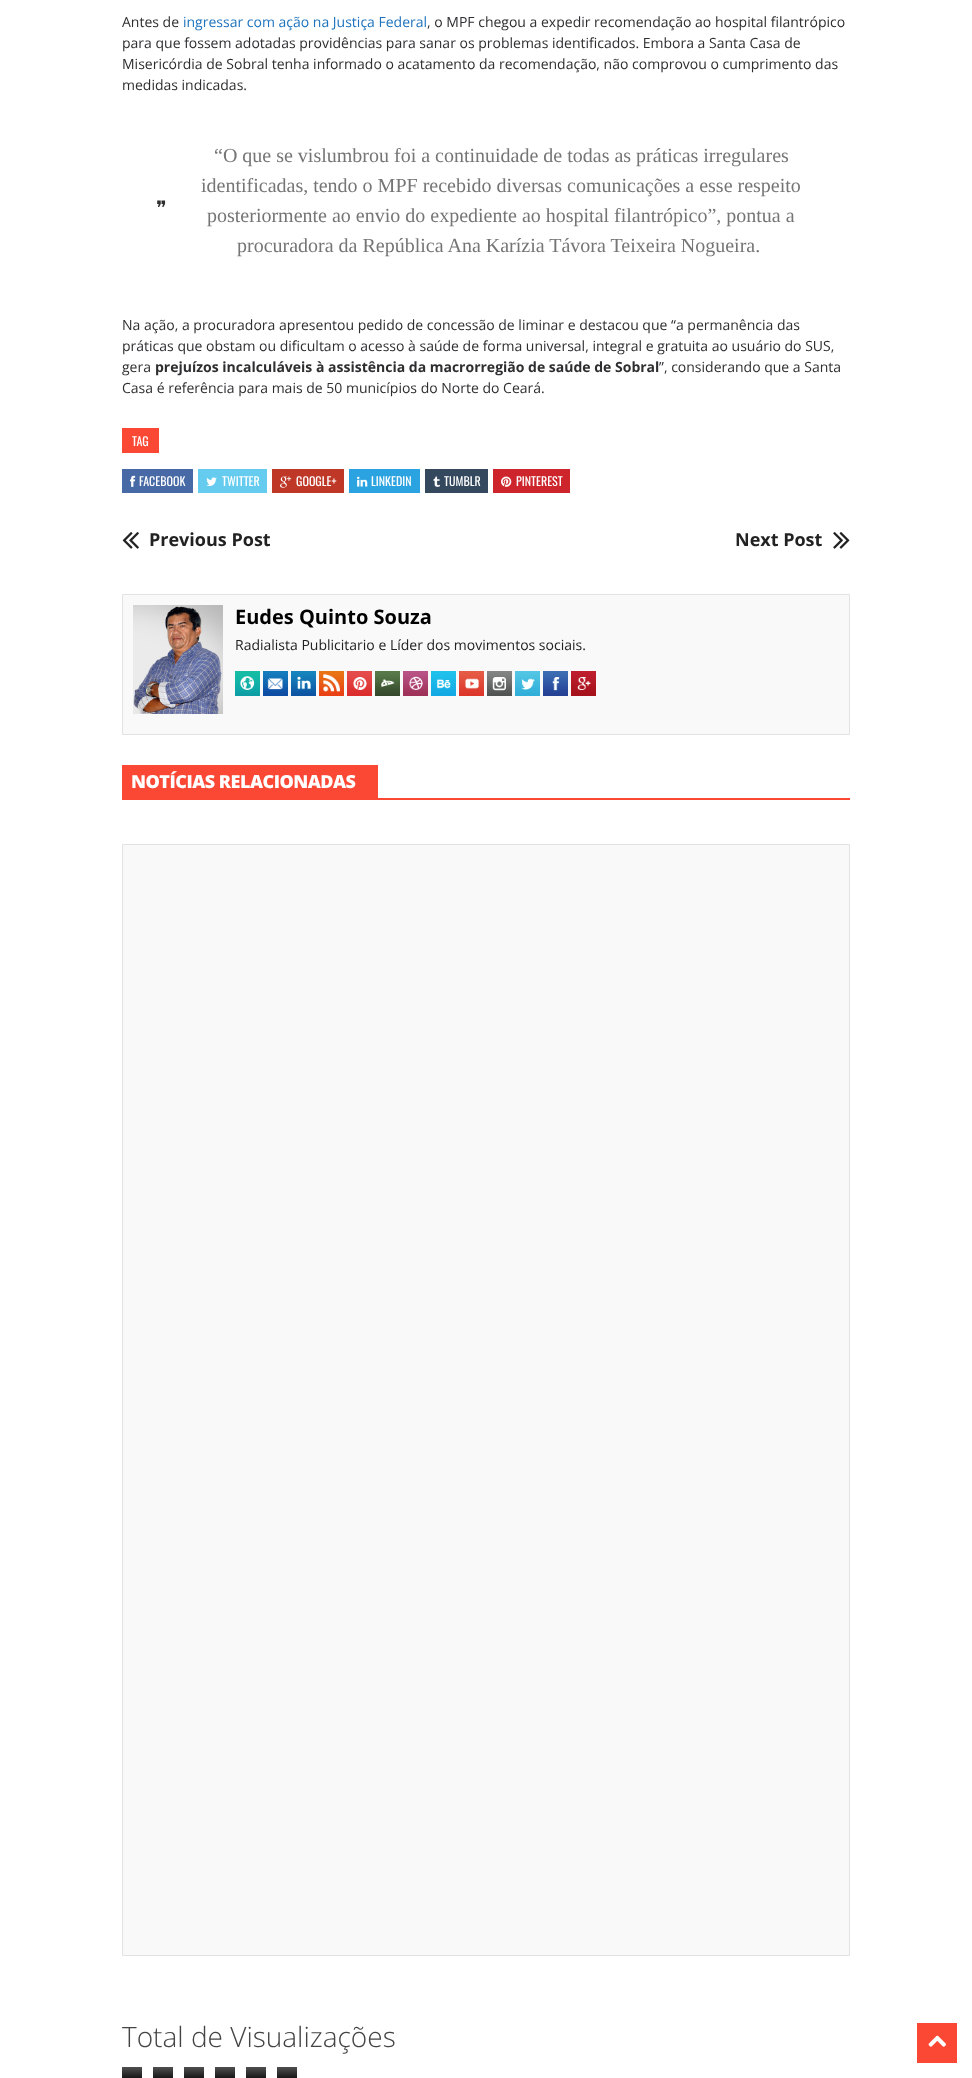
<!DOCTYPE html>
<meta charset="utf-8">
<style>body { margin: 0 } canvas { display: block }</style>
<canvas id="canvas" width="972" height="2078"></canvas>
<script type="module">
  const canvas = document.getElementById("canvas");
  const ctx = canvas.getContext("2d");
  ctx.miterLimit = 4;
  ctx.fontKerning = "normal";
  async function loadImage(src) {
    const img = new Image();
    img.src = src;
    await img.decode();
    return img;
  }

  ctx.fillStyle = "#ffffff";
  ctx.fillRect(0, 0, 972, 2078);
  ctx.font = "14px Open Sans";
  ctx.fillStyle = "#2e2e31";
  ctx.fillText("Antes de", 122, 27);
  ctx.fillStyle = "#1e73be";
  ctx.fillText("ingressar com ação na Justiça Federal", 183, 27);
  ctx.fillStyle = "#2e2e31";
  ctx.fillText(", o MPF chegou a expedir recomendação ao hospital filantrópico", 427, 27);
  ctx.fillText("para que fossem adotadas providências para sanar os problemas identificados. Embora a Santa Casa de", 122, 48);
  ctx.fillText("Misericórdia de Sobral tenha informado o acatamento da recomendação, não comprovou o cumprimento das", 122, 69);
  ctx.fillText("medidas indicadas.", 122, 90);
  ctx.font = "20px DejaVu Sans";
  ctx.fillText("❞", 156, 215);
  ctx.font = "20px Liberation Serif";
  ctx.fillStyle = "#757575";
  ctx.fillText("“O que se vislumbrou foi a continuidade de todas as práticas irregulares", 214, 162);
  ctx.fillText("identificadas, tendo o MPF recebido diversas comunicações a esse respeito", 201, 192);
  ctx.fillText("posteriormente ao envio do expediente ao hospital filantrópico”, pontua a", 207, 222);
  ctx.fillText("procuradora da República Ana Karízia Távora Teixeira Nogueira.", 237, 252);
  ctx.font = "14px Open Sans";
  ctx.fillStyle = "#2e2e31";
  ctx.fillText("Na ação, a procuradora apresentou pedido de concessão de liminar e destacou que “a permanência das", 122, 330);
  ctx.fillText("práticas que obstam ou dificultam o acesso à saúde de forma universal, integral e gratuita ao usuário do SUS,", 122, 351);
  ctx.fillText("gera", 122, 372);
  ctx.font = "bold 14px Open Sans";
  ctx.fillText("prejuízos incalculáveis à assistência da macrorregião de saúde de Sobral", 155, 372);
  ctx.font = "14px Open Sans";
  ctx.fillText("”, considerando que a Santa", 659, 372);
  ctx.fillText("Casa é referência para mais de 50 municípios do Norte do Ceará.", 122, 393);
  ctx.fillStyle = "#fb4834";
  ctx.fillRect(122, 428, 37, 25);
  ctx.font = "12px Oswald";
  ctx.fillStyle = "#ffffff";
  ctx.fillText("TAG", 132, 446);
  ctx.fillStyle = "#4769a5";
  ctx.fillRect(122, 469, 71, 24);
  ctx.drawImage(await loadImage("img1.png"), 130, 475, 6, 12);
  ctx.fillStyle = "#ffffff";
  ctx.fillText("FACEBOOK", 139, 486);
  ctx.fillStyle = "#65ccef";
  ctx.fillRect(198, 469, 69, 24);
  ctx.drawImage(await loadImage("img2.png"), 206, 477, 11, 9);
  ctx.fillStyle = "#ffffff";
  ctx.fillText("TWITTER", 222, 486);
  ctx.fillStyle = "#bf3727";
  ctx.fillRect(272, 469, 72, 24);
  ctx.drawImage(await loadImage("img3.png"), 280, 476, 12, 12);
  ctx.fillStyle = "#ffffff";
  ctx.fillText("GOOGLE+", 296, 486);
  ctx.fillStyle = "#2ba3e1";
  ctx.fillRect(349, 469, 71, 24);
  ctx.drawImage(await loadImage("img4.png"), 357, 476, 11, 11);
  ctx.fillStyle = "#ffffff";
  ctx.fillText("LINKEDIN", 371, 486);
  ctx.fillStyle = "#34495e";
  ctx.fillRect(425, 469, 63, 24);
  ctx.drawImage(await loadImage("img5.png"), 433, 476, 7, 11);
  ctx.fillStyle = "#ffffff";
  ctx.fillText("TUMBLR", 444, 486);
  ctx.fillStyle = "#cd252b";
  ctx.fillRect(493, 469, 77, 24);
  ctx.drawImage(await loadImage("img6.png"), 501, 476, 11, 11);
  ctx.fillStyle = "#ffffff";
  ctx.fillText("PINTEREST", 516, 486);
  ctx.drawImage(await loadImage("img7.png"), 122, 532, 17, 17);
  ctx.font = "bold 18px Open Sans";
  ctx.fillStyle = "#222222";
  ctx.fillText("Previous Post", 149, 546);
  ctx.fillText("Next Post", 735, 546);
  ctx.drawImage(await loadImage("img8.png"), 833, 532, 17, 17);
  ctx.fillStyle = "#f9f9f9";
  ctx.beginPath();
  ctx.rect(122.5, 594.5, 727, 140);
  ctx.fill();
  ctx.strokeStyle = "#e2e2e2";
  ctx.stroke();
  ctx.drawImage(await loadImage("img9.png"), 133, 605, 90, 109);
  ctx.font = "bold 20px Open Sans";
  ctx.fillStyle = "#000000";
  ctx.fillText("Eudes Quinto Souza", 235, 624);
  ctx.font = "14px Open Sans";
  ctx.fillStyle = "#222222";
  ctx.fillText("Radialista Publicitario e Líder dos movimentos sociais.", 235, 650);
  ctx.drawImage(await loadImage("img10.png"), 235, 671, 25, 25);
  ctx.drawImage(await loadImage("img11.png"), 263, 671, 25, 25);
  ctx.drawImage(await loadImage("img12.png"), 291, 671, 25, 25);
  ctx.drawImage(await loadImage("img13.png"), 319, 671, 25, 25);
  ctx.drawImage(await loadImage("img14.png"), 347, 671, 25, 25);
  ctx.drawImage(await loadImage("img15.png"), 375, 671, 25, 25);
  ctx.drawImage(await loadImage("img16.png"), 403, 671, 25, 25);
  ctx.drawImage(await loadImage("img17.png"), 431, 671, 25, 25);
  ctx.drawImage(await loadImage("img18.png"), 459, 671, 25, 25);
  ctx.drawImage(await loadImage("img19.png"), 487, 671, 25, 25);
  ctx.drawImage(await loadImage("img20.png"), 515, 671, 25, 25);
  ctx.drawImage(await loadImage("img21.png"), 543, 671, 25, 25);
  ctx.drawImage(await loadImage("img22.png"), 571, 671, 25, 25);
  ctx.fillStyle = "#fb4834";
  ctx.fillRect(122, 798, 728, 2);
  ctx.fillRect(122, 765, 256, 33);
  ctx.letterSpacing = "-0.5px";
  ctx.font = "800 18px Open Sans";
  ctx.fillStyle = "#ffffff";
  ctx.fillText("NOTÍCIAS RELACIONADAS", 131, 788);
  ctx.fillStyle = "#f9f9f9";
  ctx.beginPath();
  ctx.rect(122.5, 844.5, 727, 1111);
  ctx.fill();
  ctx.stroke();
  ctx.letterSpacing = "0px";
  ctx.font = "300 28px Open Sans";
  ctx.fillStyle = "#444444";
  ctx.fillText("Total de Visualizações", 122, 2047);
  ctx.drawImage(await loadImage("img23.png"), 122, 2067, 20, 11);
  ctx.drawImage(await loadImage("img23.png"), 153, 2067, 20, 11);
  ctx.drawImage(await loadImage("img23.png"), 184, 2067, 20, 11);
  ctx.drawImage(await loadImage("img23.png"), 215, 2067, 20, 11);
  ctx.drawImage(await loadImage("img23.png"), 246, 2067, 20, 11);
  ctx.drawImage(await loadImage("img23.png"), 277, 2067, 20, 11);
  ctx.fillStyle = "#fb4834";
  ctx.fillRect(917, 2023, 40, 40);
  ctx.drawImage(await loadImage("img24.png"), 928, 2035, 18, 12);
</script>
